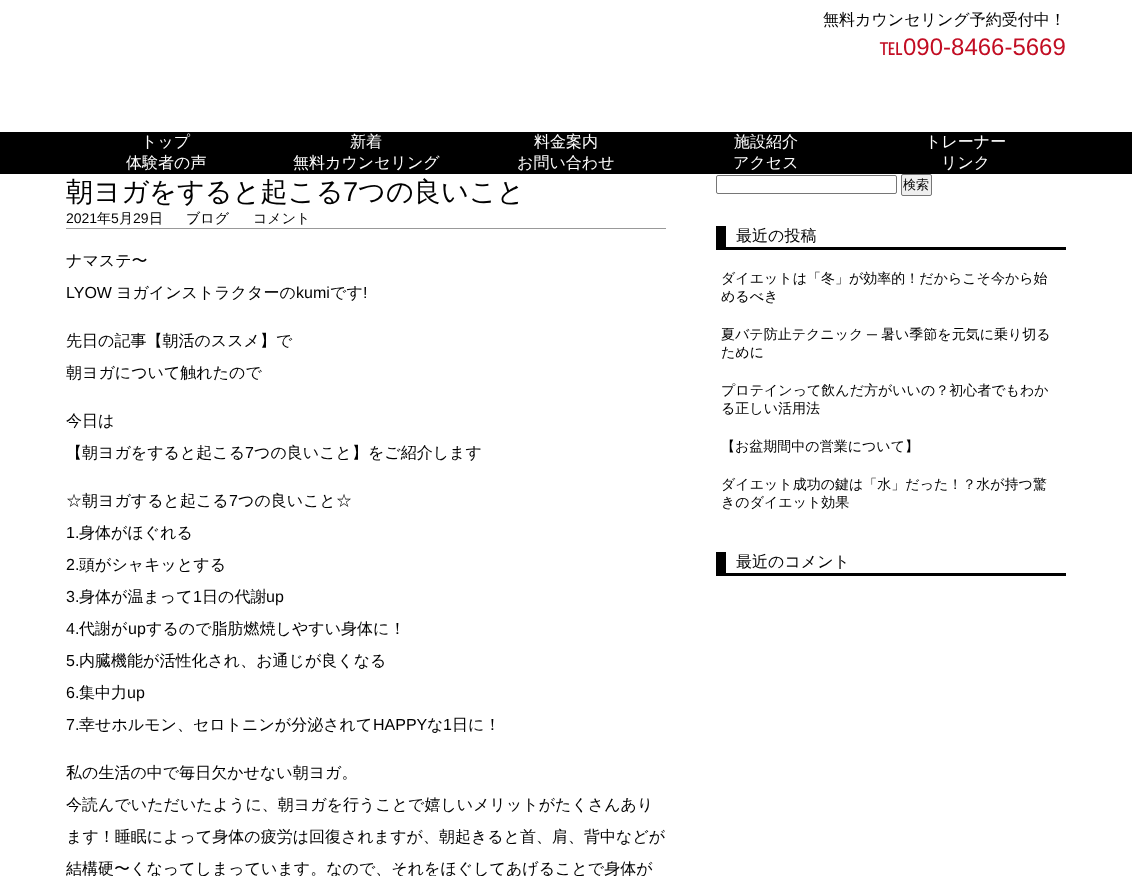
<!DOCTYPE html>
<meta charset="utf-8">
<style>body { margin: 0 } canvas { display: block }</style>
<canvas id="canvas" width="1132" height="876"></canvas>
<script>
window.onload = function () {
    const canvas = document.getElementById('canvas');
    const context = canvas.getContext('2d');
    context.miterLimit = 4;
    context.fontKerning = 'normal';

    context.fillStyle = 'rgb(255, 255, 255)';
    context.fillRect(0, 0, 1132, 876);
    context.fillStyle = 'rgb(0, 0, 0)';
    context.fillRect(0, 132, 1132, 42);
    context.fillStyle = 'rgb(153, 153, 153)';
    context.fillRect(66, 228, 600, 1);
    context.beginPath();
    context.roundRect(716.5, 175.5, 180, 18, 1.5);
    context.strokeStyle = 'rgb(118, 118, 118)';
    context.stroke();
    context.fillStyle = 'rgb(239, 239, 239)';
    context.beginPath();
    context.roundRect(901.5, 174.5, 30, 21, 1.5);
    context.fill();
    context.stroke();
    context.fillStyle = 'rgb(0, 0, 0)';
    context.fillRect(726, 247, 340, 3);
    context.fillRect(716, 226, 10, 24);
    context.fillRect(726, 573, 340, 3);
    context.fillRect(716, 552, 10, 24);
    context.font = '500 16px WenQuanYi Zen Hei';
    context.fillText('無料カウンセリング予約受付中！', 823, 25);
    context.font = '500 24px WenQuanYi Zen Hei';
    context.fillStyle = 'rgb(194, 13, 35)';
    context.fillText('℡', 879, 55);
    context.font = '24px Liberation Sans';
    context.fillText('090-8466-5669', 903, 55);
    context.font = '500 16px WenQuanYi Zen Hei';
    context.fillStyle = 'rgb(255, 255, 255)';
    context.fillText('トップ', 141, 147);
    context.fillText('新着', 350, 147);
    context.fillText('料金案内', 534, 147);
    context.fillText('施設紹介', 734, 147);
    context.fillText('トレーナー', 925, 147);
    context.fillText('体験者の声', 126, 168);
    context.fillText('無料カウンセリング', 293, 168);
    context.fillText('お問い合わせ', 517, 168);
    context.fillText('アクセス', 733, 168);
    context.fillText('リンク', 941, 168);
    context.font = '500 27.25px WenQuanYi Zen Hei';
    context.fillStyle = 'rgb(0, 0, 0)';
    context.fillText('朝ヨガをすると起こる', 66, 201);
    context.font = '27.25px Liberation Sans';
    context.fillText('7', 343, 201);
    context.font = '500 27.25px WenQuanYi Zen Hei';
    context.fillText('つの良いこと', 358, 201);
    context.font = '14px Liberation Sans';
    context.fillText('2021', 66, 223);
    context.font = '500 14px WenQuanYi Zen Hei';
    context.fillText('年', 97, 223);
    context.font = '14px Liberation Sans';
    context.fillText('5', 111, 223);
    context.font = '500 14px WenQuanYi Zen Hei';
    context.fillText('月', 119, 223);
    context.font = '14px Liberation Sans';
    context.fillText('29', 133, 223);
    context.font = '500 14px WenQuanYi Zen Hei';
    context.fillText('日', 149, 223);
    context.fillText('ブログ', 186, 223);
    context.fillText('コメント', 253, 223);
    context.font = '500 16px WenQuanYi Zen Hei';
    context.fillText('ナマステ〜', 66, 266);
    context.font = '16px Liberation Sans';
    context.fillText('LYOW', 66, 298);
    context.font = '500 16px WenQuanYi Zen Hei';
    context.fillText('ヨガインストラクターの', 116, 298);
    context.font = '16px Liberation Sans';
    context.fillText('kumi', 296, 298);
    context.font = '500 16px WenQuanYi Zen Hei';
    context.fillText('です', 330, 298);
    context.font = '16px Liberation Sans';
    context.fillText('!', 363, 298);
    context.font = '500 16px WenQuanYi Zen Hei';
    context.fillText('先日の記事【朝活のススメ】で', 66, 346);
    context.fillText('朝ヨガについて触れたので', 66, 378);
    context.fillText('今日は', 66, 426);
    context.fillText('【朝ヨガをすると起こる', 66, 458);
    context.font = '16px Liberation Sans';
    context.fillText('7', 245, 458);
    context.font = '500 16px WenQuanYi Zen Hei';
    context.fillText('つの良いこと】をご紹介します', 254, 458);
    context.fillText('☆朝ヨガすると起こる', 66, 506);
    context.font = '16px Liberation Sans';
    context.fillText('7', 229, 506);
    context.font = '500 16px WenQuanYi Zen Hei';
    context.fillText('つの良いこと☆', 238, 506);
    context.font = '16px Liberation Sans';
    context.fillText('1.', 66, 538);
    context.font = '500 16px WenQuanYi Zen Hei';
    context.fillText('身体がほぐれる', 79, 538);
    context.font = '16px Liberation Sans';
    context.fillText('2.', 66, 570);
    context.font = '500 16px WenQuanYi Zen Hei';
    context.fillText('頭がシャキッとする', 79, 570);
    context.font = '16px Liberation Sans';
    context.fillText('3.', 66, 602);
    context.font = '500 16px WenQuanYi Zen Hei';
    context.fillText('身体が温まって', 79, 602);
    context.font = '16px Liberation Sans';
    context.fillText('1', 193, 602);
    context.font = '500 16px WenQuanYi Zen Hei';
    context.fillText('日の代謝', 202, 602);
    context.font = '16px Liberation Sans';
    context.fillText('up', 266, 602);
    context.fillText('4.', 66, 634);
    context.font = '500 16px WenQuanYi Zen Hei';
    context.fillText('代謝が', 79, 634);
    context.font = '16px Liberation Sans';
    context.fillText('up', 128, 634);
    context.font = '500 16px WenQuanYi Zen Hei';
    context.fillText('するので脂肪燃焼しやすい身体に！', 146, 634);
    context.font = '16px Liberation Sans';
    context.fillText('5.', 66, 666);
    context.font = '500 16px WenQuanYi Zen Hei';
    context.fillText('内臓機能が活性化され、お通じが良くなる', 79, 666);
    context.font = '16px Liberation Sans';
    context.fillText('6.', 66, 698);
    context.font = '500 16px WenQuanYi Zen Hei';
    context.fillText('集中力', 79, 698);
    context.font = '16px Liberation Sans';
    context.fillText('up', 127, 698);
    context.fillText('7.', 66, 730);
    context.font = '500 16px WenQuanYi Zen Hei';
    context.fillText('幸せホルモン、セロトニンが分泌されて', 79, 730);
    context.font = '16px Liberation Sans';
    context.fillText('HAPPY', 373, 730);
    context.font = '500 16px WenQuanYi Zen Hei';
    context.fillText('な', 427, 730);
    context.font = '16px Liberation Sans';
    context.fillText('1', 443, 730);
    context.font = '500 16px WenQuanYi Zen Hei';
    context.fillText('日に！', 452, 730);
    context.fillText('私の生活の中で毎日欠かせない朝ヨガ。', 66, 778);
    context.fillText('今読んでいただいたように、朝ヨガを行うことで嬉しいメリットがたくさんあり', 66, 810);
    context.fillText('ます！睡眠によって身体の疲労は回復されますが、朝起きると首、肩、背中などが', 66, 842);
    context.fillText('結構硬〜くなってしまっています。なので、それをほぐしてあげることで身体が', 66, 874);
    context.font = '500 13px WenQuanYi Zen Hei';
    context.fillText('検索', 903, 189);
    context.font = '500 16px WenQuanYi Zen Hei';
    context.fillText('最近の投稿', 736, 241);
    context.font = '500 14px WenQuanYi Zen Hei';
    context.fillText('ダイエットは「冬」が効率的！だからこそ今から始', 721, 283);
    context.fillText('めるべき', 721, 301);
    context.fillText('夏バテ防止テクニック', 721, 339);
    context.font = '14px Liberation Sans';
    context.fillText('─', 867, 339);
    context.font = '500 14px WenQuanYi Zen Hei';
    context.fillText('暑い季節を元気に乗り切る', 881, 339);
    context.fillText('ために', 721, 357);
    context.fillText('プロテインって飲んだ方がいいの？初心者でもわか', 721, 395);
    context.fillText('る正しい活用法', 721, 413);
    context.fillText('【お盆期間中の営業について】', 721, 451);
    context.fillText('ダイエット成功の鍵は「水」だった！？水が持つ驚', 721, 489);
    context.fillText('きのダイエット効果', 721, 507);
    context.font = '500 16px WenQuanYi Zen Hei';
    context.fillText('最近のコメント', 736, 567);
};
</script>
